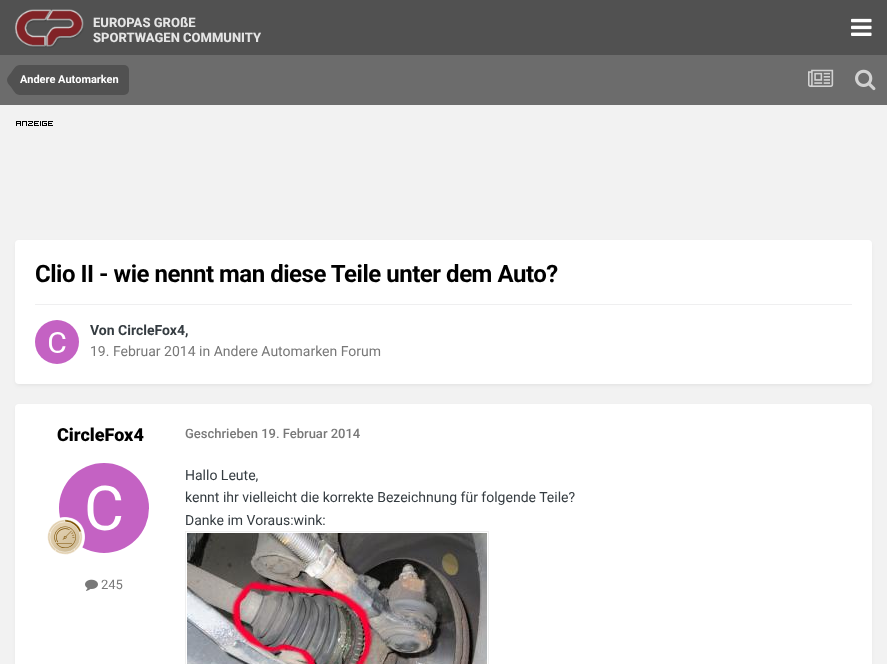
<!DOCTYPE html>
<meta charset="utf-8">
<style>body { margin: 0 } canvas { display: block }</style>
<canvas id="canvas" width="887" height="664"></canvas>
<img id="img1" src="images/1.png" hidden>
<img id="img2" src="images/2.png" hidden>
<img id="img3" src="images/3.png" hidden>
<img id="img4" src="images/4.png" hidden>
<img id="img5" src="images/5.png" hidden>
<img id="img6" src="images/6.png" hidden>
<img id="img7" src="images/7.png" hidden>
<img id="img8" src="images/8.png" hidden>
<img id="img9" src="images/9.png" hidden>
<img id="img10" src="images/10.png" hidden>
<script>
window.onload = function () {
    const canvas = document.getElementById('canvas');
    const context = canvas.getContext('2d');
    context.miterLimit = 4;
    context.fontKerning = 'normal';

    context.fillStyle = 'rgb(242, 242, 242)';
    context.fillRect(0, 0, 887, 664);
    context.fillStyle = 'rgb(81, 81, 81)';
    context.fillRect(0, 0, 887, 55);
    context.drawImage(document.getElementById('img1'), 15, 9, 69, 39);
    context.drawImage(document.getElementById('img2'), 851, 18, 21, 18);
    context.fillStyle = 'rgb(108, 108, 108)';
    context.fillRect(0, 55, 887, 50);
    context.fillStyle = 'rgb(81, 81, 81)';
    context.beginPath();
    context.roundRect(20, 65, 109, 30, [0, 5, 5, 0]);
    context.fill();
    context.beginPath();
    context.moveTo(20, 80);
    context.lineTo(20, 95);
    context.bezierCurveTo(15.5, 95, 13.5, 90.5, 11, 87);
    context.bezierCurveTo(9.5, 85, 7, 83, 7, 80);
    context.closePath();
    context.moveTo(20, 80);
    context.lineTo(7, 80);
    context.bezierCurveTo(7, 77, 9.5, 75, 11, 73);
    context.bezierCurveTo(13.5, 69.5, 15.5, 65, 20, 65);
    context.closePath();
    context.fill();
    context.drawImage(document.getElementById('img3'), 808, 69, 26, 18);
    context.drawImage(document.getElementById('img4'), 855, 69, 21, 22);
    context.drawImage(document.getElementById('img5'), 16, 121, 37, 5);
    context.fillStyle = 'rgba(68, 68, 68, 0.1)';
    context.filter = 'blur(2px)';
    context.beginPath();
    context.roundRect(16, 243, 855, 142, 3);
    context.fill();
    context.filter = 'none';
    context.fillStyle = 'rgb(255, 255, 255)';
    context.beginPath();
    context.roundRect(15, 240, 857, 144, 4);
    context.fill();
    context.fillStyle = 'rgb(239, 239, 240)';
    context.fillRect(35, 304, 817, 1);
    context.drawImage(document.getElementById('img6'), 35, 320, 44, 44);
    context.fillStyle = 'rgba(68, 68, 68, 0.1)';
    context.filter = 'blur(2px)';
    context.beginPath();
    context.roundRect(16, 407, 855, 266, 3);
    context.fill();
    context.filter = 'none';
    context.fillStyle = 'rgb(255, 255, 255)';
    context.beginPath();
    context.roundRect(15, 404, 857, 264, 4);
    context.fill();
    context.drawImage(document.getElementById('img7'), 59, 463, 90, 90);
    context.drawImage(document.getElementById('img8'), 47, 517, 38, 38);
    context.drawImage(document.getElementById('img9'), 85, 579, 13, 12);
    context.strokeStyle = 'rgb(239, 239, 239)';
    context.strokeRect(185.5, 531.5, 303, 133);
    context.drawImage(document.getElementById('img10'), 187, 533, 300, 131);
    context.font = '800 13px Roboto';
    context.fillStyle = 'rgb(229, 229, 229)';
    context.fillText('EUROPAS GROßE', 93, 27);
    context.fillText('SPORTWAGEN COMMUNITY', 93, 42);
    context.font = 'bold 11px Roboto';
    context.fillStyle = 'rgb(255, 255, 255)';
    context.fillText('Andere Automarken', 20, 83);
    context.letterSpacing = '-0.48px';
    context.font = 'bold 24px Roboto';
    context.fillStyle = 'rgb(0, 0, 0)';
    context.fillText('Clio II - wie nennt man diese Teile unter dem Auto?', 35, 282);
    context.letterSpacing = '0px';
    context.font = 'bold 14px Roboto';
    context.fillStyle = 'rgb(53, 60, 65)';
    context.fillText('Von CircleFox4,', 90, 335);
    context.font = '14px Roboto';
    context.fillStyle = 'rgb(120, 120, 120)';
    context.fillText('19. Februar 2014 in Andere Automarken Forum', 90, 356);
    context.font = '900 18px Roboto';
    context.fillStyle = 'rgb(0, 0, 0)';
    context.fillText('CircleFox4', 57, 441);
    context.font = '13px Roboto';
    context.fillStyle = 'rgb(120, 120, 120)';
    context.fillText('245', 101, 589);
    context.font = '500 13px Roboto';
    context.fillText('Geschrieben 19. Februar 2014', 185, 438);
    context.font = '14px Roboto';
    context.fillStyle = 'rgb(53, 60, 65)';
    context.fillText('Hallo Leute,', 185, 480);
    context.fillText('kennt ihr vielleicht die korrekte Bezeichnung für folgende Teile?', 185, 502);
    context.fillText('Danke im Voraus:wink:', 185, 525);
};
</script>
